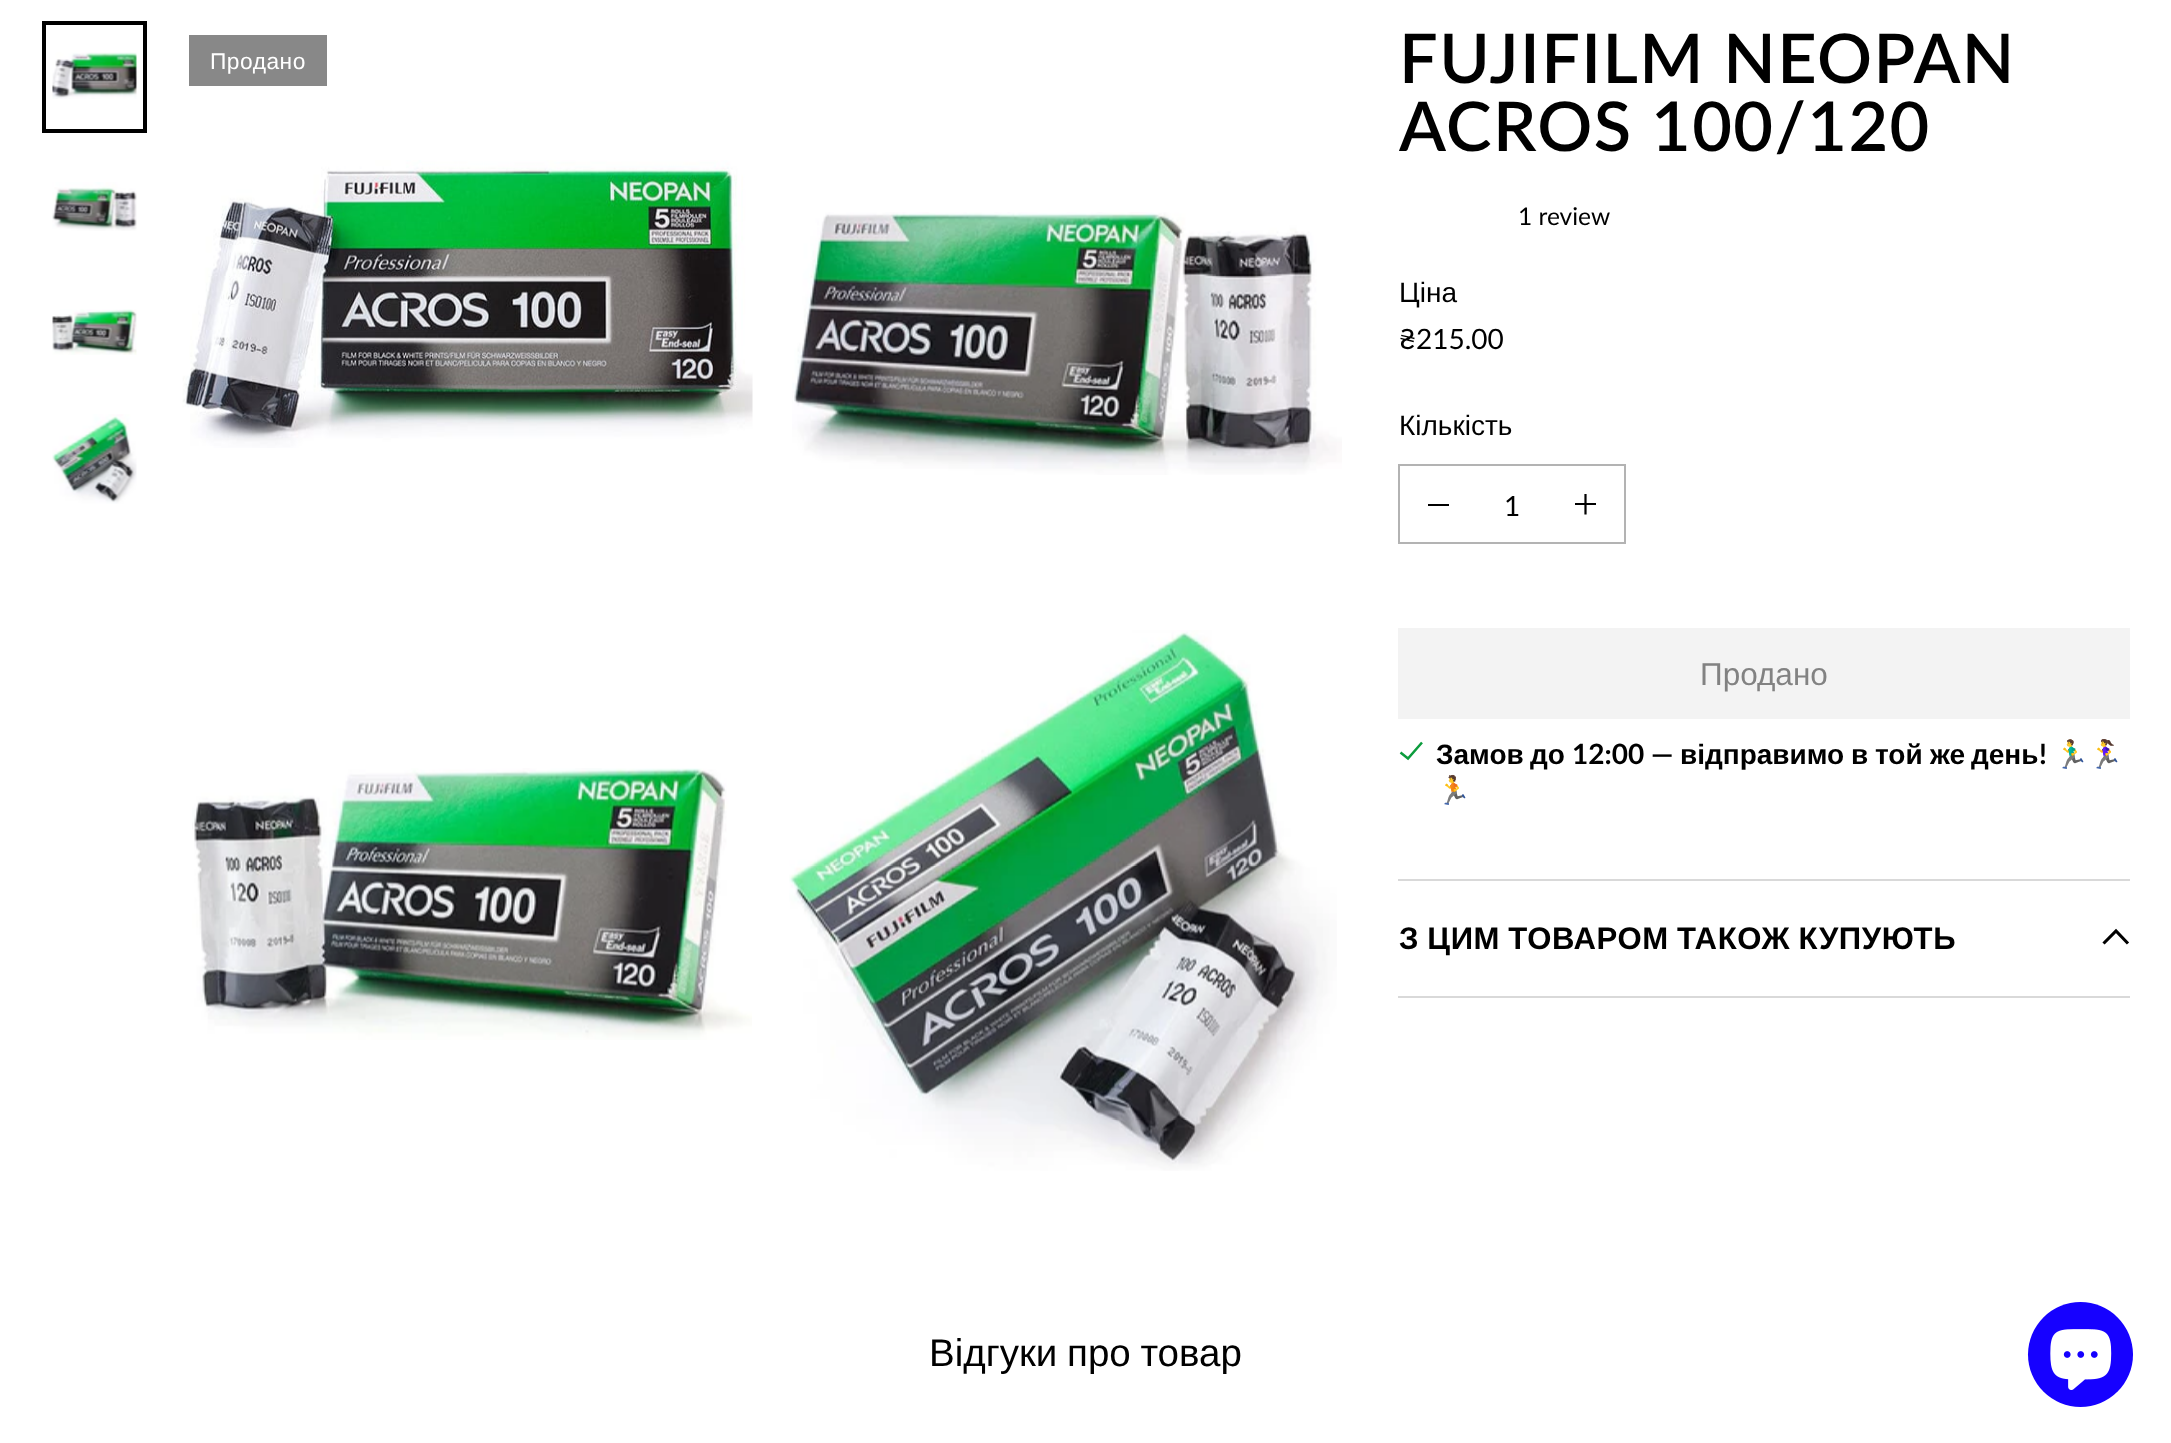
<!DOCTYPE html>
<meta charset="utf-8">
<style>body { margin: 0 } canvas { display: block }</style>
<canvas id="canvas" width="2171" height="1443"></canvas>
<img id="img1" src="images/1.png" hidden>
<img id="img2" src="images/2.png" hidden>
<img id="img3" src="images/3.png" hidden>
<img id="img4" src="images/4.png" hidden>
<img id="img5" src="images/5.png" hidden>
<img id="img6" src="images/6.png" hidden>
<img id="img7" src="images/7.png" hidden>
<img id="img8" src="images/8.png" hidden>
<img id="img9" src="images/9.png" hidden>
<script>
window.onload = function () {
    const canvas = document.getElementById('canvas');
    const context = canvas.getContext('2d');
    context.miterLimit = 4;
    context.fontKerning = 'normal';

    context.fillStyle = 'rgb(255, 255, 255)';
    context.fillRect(0, 0, 2171, 1443);
    context.strokeStyle = 'rgb(0, 0, 0)';
    context.lineWidth = 4;
    context.strokeRect(44, 23, 101, 108);
    context.drawImage(document.getElementById('img1'), 52, 52, 85, 47);
    context.drawImage(document.getElementById('img2'), 52, 182, 85, 49);
    context.drawImage(document.getElementById('img3'), 52, 309, 85, 46);
    context.drawImage(document.getElementById('img4'), 52, 414, 85, 90);
    context.fillStyle = 'rgb(136, 136, 136)';
    context.fillRect(189, 35, 138, 51);
    context.drawImage(document.getElementById('img5'), 182, 160, 571, 288);
    context.drawImage(document.getElementById('img6'), 792, 212, 550, 263);
    context.drawImage(document.getElementById('img7'), 192, 768, 560, 272);
    context.drawImage(document.getElementById('img8'), 789, 630, 548, 541);
    context.strokeStyle = 'rgb(179, 179, 179)';
    context.lineWidth = 2;
    context.strokeRect(1399, 465, 226, 78);
    context.fillStyle = 'rgb(0, 0, 0)';
    context.fillRect(1428, 504, 21, 2);
    context.save();
    context.beginPath();
    context.rect(1575, 494, 21, 21);
    context.clip();
    context.beginPath();
    context.moveTo(1585.5, 493.5);
    context.lineTo(1585.5, 504);
    context.moveTo(1585.5, 514.5);
    context.lineTo(1585.5, 504);
    context.moveTo(1585.5, 504);
    context.lineTo(1596, 504);
    context.moveTo(1585.5, 504);
    context.lineTo(1575, 504);
    context.strokeStyle = 'rgb(0, 0, 0)';
    context.lineWidth = 2.2;
    context.stroke();
    context.restore();
    context.fillStyle = 'rgb(243, 243, 243)';
    context.fillRect(1398, 628, 732, 91);
    context.beginPath();
    context.moveTo(1400.5, 752.5);
    context.lineTo(1408, 758.5);
    context.lineTo(1422, 742.5);
    context.strokeStyle = 'rgb(12, 156, 61)';
    context.lineWidth = 2.5;
    context.stroke();
    context.fillStyle = 'rgb(217, 217, 217)';
    context.fillRect(1398, 879, 732, 2);
    context.fillRect(1398, 996, 732, 2);
    context.beginPath();
    context.moveTo(2128, 943.5);
    context.lineTo(2116, 931);
    context.lineTo(2103.5, 943.5);
    context.strokeStyle = 'rgb(0, 0, 0)';
    context.lineWidth = 3.1;
    context.stroke();
    context.fillStyle = 'rgb(22, 1, 255)';
    context.beginPath();
    context.arc(2080.5, 1354.5, 52.5, 0, 2 * Math.PI);
    context.fill();
    context.drawImage(document.getElementById('img9'), 2050, 1329, 62, 61);
    context.letterSpacing = '0.5px';
    context.font = '22.75px Liberation Sans';
    context.fillStyle = 'rgb(255, 255, 255)';
    context.fillText('Продано', 210, 69);
    context.letterSpacing = '1.4px';
    context.font = '600 68.5px Lato';
    context.fillStyle = 'rgb(0, 0, 0)';
    context.fillText('FUJIFILM NEOPAN', 1399, 83);
    context.fillText('ACROS 100/120', 1399, 151);
    context.letterSpacing = '0px';
    context.font = '24.5px Lato';
    context.fillText('1 review', 1518, 225);
    context.font = '28px Liberation Sans';
    context.fillText('Ціна', 1399, 302);
    context.font = '28px Lato';
    context.fillText('₴215.00', 1399, 349);
    context.font = '28px Liberation Sans';
    context.fillText('Кількість', 1399, 435);
    context.font = '28px Lato';
    context.fillText('1', 1504, 516);
    context.font = '31.5px Liberation Sans';
    context.fillStyle = 'rgb(130, 130, 130)';
    context.fillText('Продано', 1700, 685);
    context.font = 'bold 28px Liberation Sans';
    context.fillStyle = 'rgb(0, 0, 0)';
    context.fillText('Замов', 1436, 764);
    context.fillText('до', 1530, 764);
    context.font = 'bold 28px Lato';
    context.fillText('12:00 —', 1572, 764);
    context.font = 'bold 28px Liberation Sans';
    context.fillText('відправимо', 1680, 764);
    context.fillText('в', 1851, 764);
    context.fillText('той', 1875, 764);
    context.fillText('же', 1930, 764);
    context.fillText('день', 1971, 764);
    context.font = 'bold 28px Lato';
    context.fillText('!', 2039, 764);
    context.font = 'bold 28px Noto Color Emoji';
    context.fillText('🏃‍♂️🏃‍♀️', 2054, 764);
    context.fillText('🏃', 1436, 800);
    context.letterSpacing = '0.6px';
    context.wordSpacing = '-1px';
    context.font = 'bold 31.1px Liberation Sans';
    context.fillText('З ЦИМ ТОВАРОМ ТАКОЖ КУПУЮТЬ', 1399, 949);
    context.letterSpacing = '0px';
    context.font = '38.5px Liberation Sans';
    context.fillText('Відгуки про товар', 929, 1366);
};
</script>
